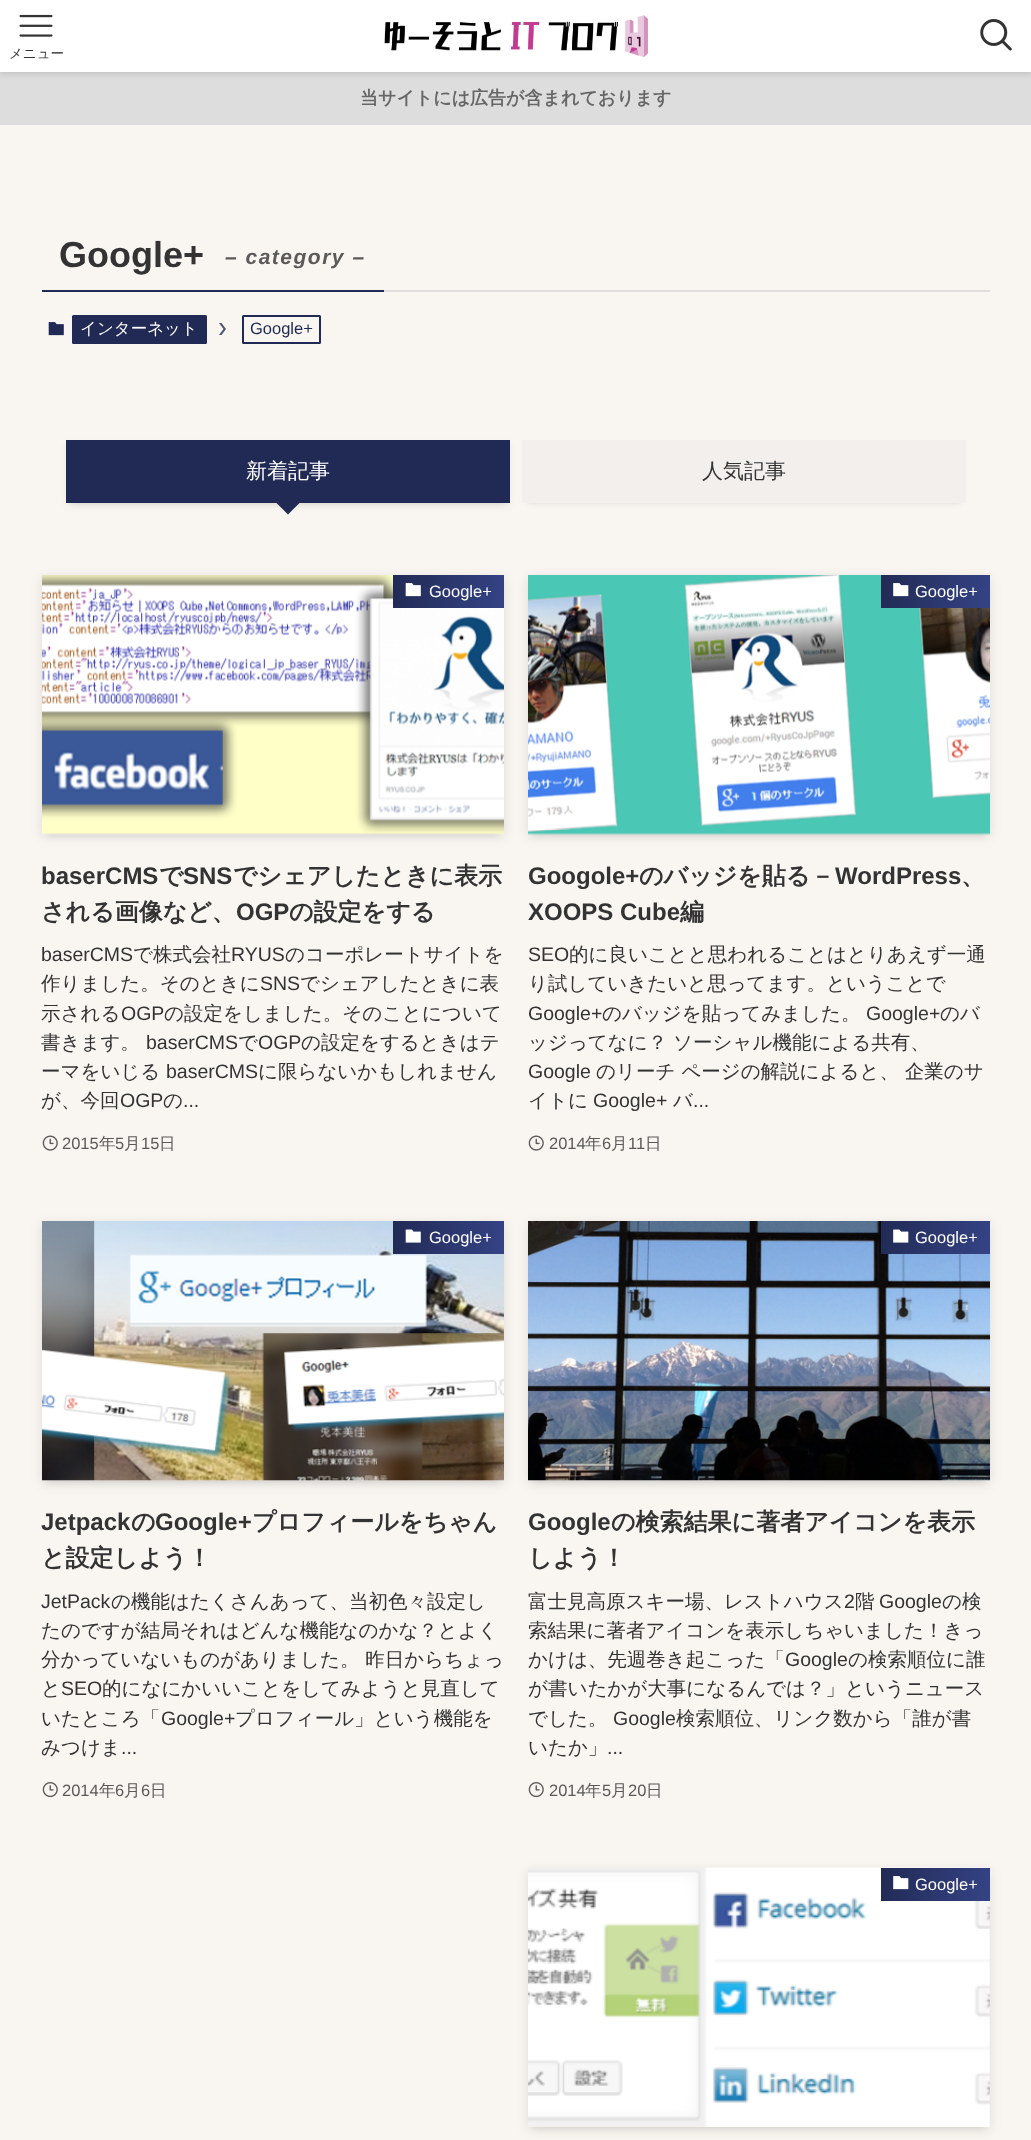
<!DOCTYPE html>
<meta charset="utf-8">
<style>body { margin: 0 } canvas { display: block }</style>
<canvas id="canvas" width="1031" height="2140"></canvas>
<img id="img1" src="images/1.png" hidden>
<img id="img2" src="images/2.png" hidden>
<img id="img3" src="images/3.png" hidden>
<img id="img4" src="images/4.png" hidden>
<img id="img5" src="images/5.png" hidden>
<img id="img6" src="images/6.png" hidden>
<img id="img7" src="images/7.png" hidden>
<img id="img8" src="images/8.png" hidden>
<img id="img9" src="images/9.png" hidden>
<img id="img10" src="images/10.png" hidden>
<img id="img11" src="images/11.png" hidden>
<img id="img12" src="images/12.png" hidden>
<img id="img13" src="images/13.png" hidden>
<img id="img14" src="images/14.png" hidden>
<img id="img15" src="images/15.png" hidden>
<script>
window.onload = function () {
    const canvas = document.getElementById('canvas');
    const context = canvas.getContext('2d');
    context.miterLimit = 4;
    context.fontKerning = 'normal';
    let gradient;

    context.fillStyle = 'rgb(249, 246, 242)';
    context.fillRect(0, 0, 1031, 2140);
    context.fillStyle = 'rgb(221, 221, 221)';
    context.fillRect(0, 72, 1031, 53);
    context.fillStyle = 'rgba(0, 0, 0, 0.12)';
    context.filter = 'blur(3px)';
    context.beginPath();
    context.rect(0, 2, 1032, 72);
    context.fill();
    context.filter = 'none';
    context.fillStyle = 'rgb(255, 255, 255)';
    context.fillRect(0, 0, 1031, 72);
    context.drawImage(document.getElementById('img1'), 384, 15, 264, 42);
    context.drawImage(document.getElementById('img2'), 980, 19, 32, 32);
    context.drawImage(document.getElementById('img3'), 19, 14, 34, 23);
    context.fillStyle = 'rgb(224, 223, 221)';
    context.fillRect(384, 290, 606, 2);
    context.fillStyle = 'rgb(33, 42, 84)';
    context.fillRect(42, 290, 342, 2);
    context.drawImage(document.getElementById('img4'), 48, 322, 16, 14);
    context.beginPath();
    context.roundRect(72, 315, 135, 29, 1.5);
    context.fill();
    context.fillStyle = 'rgb(76, 83, 116)';
    context.beginPath();
    context.moveTo(221.5, 323);
    context.lineTo(219, 323);
    context.lineTo(223.5, 329);
    context.lineTo(219, 335);
    context.lineTo(221.5, 335);
    context.lineTo(226, 329);
    context.closePath();
    context.fill();
    context.beginPath();
    context.roundRect(243, 316, 77, 27, 0.5);
    context.strokeStyle = 'rgb(33, 42, 84)';
    context.lineWidth = 2;
    context.stroke();
    context.fillStyle = 'rgba(0, 0, 0, 0.1)';
    context.filter = 'blur(3px)';
    context.beginPath();
    context.rect(72, 452, 432, 51);
    context.fill();
    context.filter = 'none';
    context.fillStyle = 'rgba(0, 0, 0, 0.05)';
    context.filter = 'blur(3px)';
    context.beginPath();
    context.rect(66, 443, 444, 63);
    context.fill();
    context.filter = 'none';
    context.fillStyle = 'rgb(33, 42, 84)';
    context.fillRect(66, 440, 444, 63);
    context.beginPath();
    context.moveTo(276, 502.5);
    context.lineTo(300, 502.5);
    context.lineTo(288, 514.5);
    context.closePath();
    context.fill();
    context.save();
    context.beginPath();
    context.moveTo(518, 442);
    context.lineTo(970, 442);
    context.lineTo(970, 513);
    context.lineTo(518, 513);
    context.closePath();
    context.moveTo(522, 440);
    context.lineTo(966, 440);
    context.lineTo(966, 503);
    context.lineTo(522, 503);
    context.closePath();
    context.clip('evenodd');
    context.fillStyle = 'rgba(0, 0, 0, 0.1)';
    context.filter = 'blur(3px)';
    context.beginPath();
    context.rect(528, 452, 432, 51);
    context.fill();
    context.filter = 'none';
    context.restore();
    context.fillStyle = 'rgba(199, 199, 199, 0.15)';
    context.fillRect(522, 440, 444, 63);
    context.fillStyle = 'rgba(0, 0, 0, 0.1)';
    context.filter = 'blur(3px)';
    context.beginPath();
    context.rect(48, 587, 450, 247);
    context.fill();
    context.filter = 'none';
    context.filter = 'blur(6px)';
    context.beginPath();
    context.rect(42, 578, 462, 259);
    context.fill();
    context.filter = 'none';
    context.drawImage(document.getElementById('img5'), 42, 575, 462, 260);
    gradient = context.createLinearGradient(392, 581, 505, 601);
    gradient.addColorStop(0, 'rgb(33, 42, 84)');
    gradient.addColorStop(1, 'rgb(53, 67, 134)');
    context.fillStyle = gradient;
    context.fillRect(393, 575, 111, 33);
    context.drawImage(document.getElementById('img6'), 405, 583, 16, 14);
    context.drawImage(document.getElementById('img7'), 42, 1135, 16, 16);
    context.fillStyle = 'rgba(0, 0, 0, 0.1)';
    context.filter = 'blur(3px)';
    context.beginPath();
    context.rect(534, 587, 450, 247);
    context.fill();
    context.filter = 'none';
    context.filter = 'blur(6px)';
    context.beginPath();
    context.rect(528, 578, 462, 259);
    context.fill();
    context.filter = 'none';
    context.drawImage(document.getElementById('img8'), 528, 575, 462, 260);
    gradient = context.createLinearGradient(879, 581, 991, 601);
    gradient.addColorStop(0, 'rgb(33, 42, 84)');
    gradient.addColorStop(1, 'rgb(53, 67, 134)');
    context.fillStyle = gradient;
    context.fillRect(881, 575, 109, 33);
    context.drawImage(document.getElementById('img9'), 893, 583, 16, 14);
    context.drawImage(document.getElementById('img7'), 528, 1135, 16, 16);
    context.fillStyle = 'rgba(0, 0, 0, 0.1)';
    context.filter = 'blur(3px)';
    context.beginPath();
    context.rect(48, 1233, 450, 248);
    context.fill();
    context.filter = 'none';
    context.filter = 'blur(6px)';
    context.beginPath();
    context.rect(42, 1224, 462, 260);
    context.fill();
    context.filter = 'none';
    context.drawImage(document.getElementById('img10'), 42, 1221, 462, 260);
    gradient = context.createLinearGradient(392, 1228, 505, 1247);
    gradient.addColorStop(0, 'rgb(33, 42, 84)');
    gradient.addColorStop(1, 'rgb(53, 67, 134)');
    context.fillStyle = gradient;
    context.fillRect(393, 1221, 111, 33);
    context.drawImage(document.getElementById('img11'), 405, 1229, 16, 14);
    context.drawImage(document.getElementById('img12'), 42, 1782, 16, 16);
    context.fillStyle = 'rgba(0, 0, 0, 0.1)';
    context.filter = 'blur(3px)';
    context.beginPath();
    context.rect(534, 1233, 450, 248);
    context.fill();
    context.filter = 'none';
    context.filter = 'blur(6px)';
    context.beginPath();
    context.rect(528, 1224, 462, 260);
    context.fill();
    context.filter = 'none';
    context.drawImage(document.getElementById('img13'), 528, 1221, 462, 260);
    gradient = context.createLinearGradient(879, 1228, 991, 1247);
    gradient.addColorStop(0, 'rgb(33, 42, 84)');
    gradient.addColorStop(1, 'rgb(53, 67, 134)');
    context.fillStyle = gradient;
    context.fillRect(881, 1221, 109, 33);
    context.drawImage(document.getElementById('img14'), 893, 1229, 16, 14);
    context.drawImage(document.getElementById('img12'), 528, 1782, 16, 16);
    context.fillStyle = 'rgba(0, 0, 0, 0.1)';
    context.filter = 'blur(3px)';
    context.beginPath();
    context.rect(534, 1880, 450, 247);
    context.fill();
    context.filter = 'none';
    context.filter = 'blur(6px)';
    context.beginPath();
    context.rect(528, 1871, 462, 259);
    context.fill();
    context.filter = 'none';
    context.drawImage(document.getElementById('img15'), 528, 1867, 462, 260);
    gradient = context.createLinearGradient(879, 1874, 991, 1894);
    gradient.addColorStop(0, 'rgb(33, 42, 84)');
    gradient.addColorStop(1, 'rgb(53, 67, 134)');
    context.fillStyle = gradient;
    context.fillRect(881, 1868, 109, 33);
    context.drawImage(document.getElementById('img9'), 893, 1876, 16, 14);
    context.font = '500 13.5px WenQuanYi Zen Hei';
    context.fillStyle = 'rgb(51, 51, 51)';
    context.fillText('メニュー', 9, 58);
    context.font = 'bold 18px WenQuanYi Zen Hei';
    context.fillStyle = 'rgb(102, 102, 102)';
    context.fillText('当サイトには広告が含まれております', 360, 104);
    context.font = 'bold 36px Liberation Sans';
    context.fillStyle = 'rgb(51, 51, 51)';
    context.fillText('Google+', 59, 267);
    context.letterSpacing = '1.5px';
    context.font = 'italic bold 21px Liberation Sans';
    context.fillStyle = 'rgb(91, 90, 89)';
    context.fillText('– category –', 225, 264);
    context.letterSpacing = '0px';
    context.font = '500 16.5px WenQuanYi Zen Hei';
    context.fillStyle = 'rgb(255, 255, 255)';
    context.fillText('インターネット', 80, 334);
    context.font = '16.5px Liberation Sans';
    context.fillStyle = 'rgb(33, 42, 84)';
    context.fillText('Google+', 250, 334);
    context.font = '500 21px WenQuanYi Zen Hei';
    context.fillStyle = 'rgb(255, 255, 255)';
    context.fillText('新着記事', 246, 478);
    context.fillStyle = 'rgb(51, 51, 51)';
    context.fillText('人気記事', 702, 478);
    context.font = '16.5px Liberation Sans';
    context.fillStyle = 'rgb(255, 255, 255)';
    context.fillText('Google+', 429, 597);
    context.font = 'bold 24px Liberation Sans';
    context.fillStyle = 'rgb(51, 51, 51)';
    context.fillText('baserCMS', 41, 884);
    context.font = 'bold 24px WenQuanYi Zen Hei';
    context.fillText('で', 159, 884);
    context.font = 'bold 24px Liberation Sans';
    context.fillText('SNS', 183, 884);
    context.font = 'bold 24px WenQuanYi Zen Hei';
    context.fillText('でシェアしたときに表示', 233, 884);
    context.fillText('される画像など、', 41, 920);
    context.font = 'bold 24px Liberation Sans';
    context.fillText('OGP', 236, 920);
    context.font = 'bold 24px WenQuanYi Zen Hei';
    context.fillText('の設定をする', 289, 920);
    context.font = '19.5px Liberation Sans';
    context.fillText('baserCMS', 41, 961);
    context.font = '500 19.5px WenQuanYi Zen Hei';
    context.fillText('で株式会社', 133, 961);
    context.font = '19.5px Liberation Sans';
    context.fillText('RYUS', 231, 961);
    context.font = '500 19.5px WenQuanYi Zen Hei';
    context.fillText('のコーポレートサイトを', 285, 961);
    context.fillText('作りました。そのときに', 41, 990);
    context.font = '19.5px Liberation Sans';
    context.fillText('SNS', 260, 990);
    context.font = '500 19.5px WenQuanYi Zen Hei';
    context.fillText('でシェアしたときに表', 300, 990);
    context.fillText('示される', 41, 1020);
    context.font = '19.5px Liberation Sans';
    context.fillText('OGP', 121, 1020);
    context.font = '500 19.5px WenQuanYi Zen Hei';
    context.fillText('の設定をしました。そのことについて', 164, 1020);
    context.fillText('書きます。', 41, 1049);
    context.font = '19.5px Liberation Sans';
    context.fillText('baserCMS', 146, 1049);
    context.font = '500 19.5px WenQuanYi Zen Hei';
    context.fillText('で', 238, 1049);
    context.font = '19.5px Liberation Sans';
    context.fillText('OGP', 258, 1049);
    context.font = '500 19.5px WenQuanYi Zen Hei';
    context.fillText('の設定をするときはテ', 301, 1049);
    context.fillText('ーマをいじる', 41, 1078);
    context.font = '19.5px Liberation Sans';
    context.fillText('baserCMS', 166, 1078);
    context.font = '500 19.5px WenQuanYi Zen Hei';
    context.fillText('に限らないかもしれません', 258, 1078);
    context.fillText('が、今回', 41, 1107);
    context.font = '19.5px Liberation Sans';
    context.fillText('OGP', 120, 1107);
    context.font = '500 19.5px WenQuanYi Zen Hei';
    context.fillText('の', 163, 1107);
    context.font = '19.5px Liberation Sans';
    context.fillText('...', 183, 1107);
    context.font = '16.5px Liberation Sans';
    context.fillStyle = 'rgb(91, 90, 89)';
    context.fillText('2015', 62, 1149);
    context.font = '500 16.5px WenQuanYi Zen Hei';
    context.fillText('年', 99, 1149);
    context.font = '16.5px Liberation Sans';
    context.fillText('5', 115, 1149);
    context.font = '500 16.5px WenQuanYi Zen Hei';
    context.fillText('月', 124, 1149);
    context.font = '16.5px Liberation Sans';
    context.fillText('15', 141, 1149);
    context.font = '500 16.5px WenQuanYi Zen Hei';
    context.fillText('日', 159, 1149);
    context.font = '16.5px Liberation Sans';
    context.fillStyle = 'rgb(255, 255, 255)';
    context.fillText('Google+', 915, 597);
    context.font = 'bold 24px Liberation Sans';
    context.fillStyle = 'rgb(51, 51, 51)';
    context.fillText('Googole+', 528, 884);
    context.font = 'bold 24px WenQuanYi Zen Hei';
    context.fillText('のバッジを貼る－', 639, 884);
    context.font = 'bold 24px Liberation Sans';
    context.fillText('WordPress', 835, 884);
    context.font = 'bold 24px WenQuanYi Zen Hei';
    context.fillText('、', 961, 884);
    context.font = 'bold 24px Liberation Sans';
    context.fillText('XOOPS Cube', 528, 920);
    context.font = 'bold 24px WenQuanYi Zen Hei';
    context.fillText('編', 680, 920);
    context.font = '19.5px Liberation Sans';
    context.fillText('SEO', 528, 961);
    context.font = '500 19.5px WenQuanYi Zen Hei';
    context.fillText('的に良いことと思われることはとりあえず一通', 569, 961);
    context.fillText('り試していきたいと思ってます。ということで', 528, 990);
    context.font = '19.5px Liberation Sans';
    context.fillText('Google+', 528, 1020);
    context.font = '500 19.5px WenQuanYi Zen Hei';
    context.fillText('のバッジを貼ってみました。', 602, 1020);
    context.font = '19.5px Liberation Sans';
    context.fillText('Google+', 866, 1020);
    context.font = '500 19.5px WenQuanYi Zen Hei';
    context.fillText('のバ', 940, 1020);
    context.fillText('ッジってなに？ ソーシャル機能による共有、', 528, 1049);
    context.font = '19.5px Liberation Sans';
    context.fillText('Google', 528, 1078);
    context.font = '500 19.5px WenQuanYi Zen Hei';
    context.fillText('のリーチ ページの解説によると、 企業のサ', 596, 1078);
    context.fillText('イトに', 528, 1107);
    context.font = '19.5px Liberation Sans';
    context.fillText('Google+', 593, 1107);
    context.font = '500 19.5px WenQuanYi Zen Hei';
    context.fillText('バ', 673, 1107);
    context.font = '19.5px Liberation Sans';
    context.fillText('...', 693, 1107);
    context.font = '16.5px Liberation Sans';
    context.fillStyle = 'rgb(91, 90, 89)';
    context.fillText('2014', 549, 1149);
    context.font = '500 16.5px WenQuanYi Zen Hei';
    context.fillText('年', 585, 1149);
    context.font = '16.5px Liberation Sans';
    context.fillText('6', 602, 1149);
    context.font = '500 16.5px WenQuanYi Zen Hei';
    context.fillText('月', 611, 1149);
    context.font = '16.5px Liberation Sans';
    context.fillText('11', 628, 1149);
    context.font = '500 16.5px WenQuanYi Zen Hei';
    context.fillText('日', 645, 1149);
    context.font = '16.5px Liberation Sans';
    context.fillStyle = 'rgb(255, 255, 255)';
    context.fillText('Google+', 429, 1243);
    context.font = 'bold 24px Liberation Sans';
    context.fillStyle = 'rgb(51, 51, 51)';
    context.fillText('Jetpack', 41, 1530);
    context.font = 'bold 24px WenQuanYi Zen Hei';
    context.fillText('の', 131, 1530);
    context.font = 'bold 24px Liberation Sans';
    context.fillText('Google+', 155, 1530);
    context.font = 'bold 24px WenQuanYi Zen Hei';
    context.fillText('プロフィールをちゃん', 252, 1530);
    context.fillText('と設定しよう！', 41, 1566);
    context.font = '19.5px Liberation Sans';
    context.fillText('JetPack', 41, 1608);
    context.font = '500 19.5px WenQuanYi Zen Hei';
    context.fillText('の機能はたくさんあって、当初色々設定し', 111, 1608);
    context.fillText('たのですが結局それはどんな機能なのかな？とよく', 41, 1637);
    context.fillText('分かっていないものがありました。 昨日からちょっ', 41, 1666);
    context.fillText('と', 41, 1695);
    context.font = '19.5px Liberation Sans';
    context.fillText('SEO', 61, 1695);
    context.font = '500 19.5px WenQuanYi Zen Hei';
    context.fillText('的になにかいいことをしてみようと見直して', 102, 1695);
    context.fillText('いたところ「', 41, 1725);
    context.font = '19.5px Liberation Sans';
    context.fillText('Google+', 161, 1725);
    context.font = '500 19.5px WenQuanYi Zen Hei';
    context.fillText('プロフィール」という機能を', 235, 1725);
    context.fillText('みつけま', 41, 1754);
    context.font = '19.5px Liberation Sans';
    context.fillText('...', 121, 1754);
    context.font = '16.5px Liberation Sans';
    context.fillStyle = 'rgb(91, 90, 89)';
    context.fillText('2014', 62, 1796);
    context.font = '500 16.5px WenQuanYi Zen Hei';
    context.fillText('年', 99, 1796);
    context.font = '16.5px Liberation Sans';
    context.fillText('6', 115, 1796);
    context.font = '500 16.5px WenQuanYi Zen Hei';
    context.fillText('月', 124, 1796);
    context.font = '16.5px Liberation Sans';
    context.fillText('6', 141, 1796);
    context.font = '500 16.5px WenQuanYi Zen Hei';
    context.fillText('日', 150, 1796);
    context.font = '16.5px Liberation Sans';
    context.fillStyle = 'rgb(255, 255, 255)';
    context.fillText('Google+', 915, 1243);
    context.font = 'bold 24px Liberation Sans';
    context.fillStyle = 'rgb(51, 51, 51)';
    context.fillText('Google', 528, 1530);
    context.font = 'bold 24px WenQuanYi Zen Hei';
    context.fillText('の検索結果に著者アイコンを表示', 611, 1530);
    context.fillText('しよう！', 528, 1566);
    context.font = '500 19.5px WenQuanYi Zen Hei';
    context.fillText('富士見高原スキー場、レストハウス', 528, 1608);
    context.font = '19.5px Liberation Sans';
    context.fillText('2', 844, 1608);
    context.font = '500 19.5px WenQuanYi Zen Hei';
    context.fillText('階', 855, 1608);
    context.font = '19.5px Liberation Sans';
    context.fillText('Google', 879, 1608);
    context.font = '500 19.5px WenQuanYi Zen Hei';
    context.fillText('の検', 942, 1608);
    context.fillText('索結果に著者アイコンを表示しちゃいました！きっ', 528, 1637);
    context.fillText('かけは、先週巻き起こった「', 528, 1666);
    context.font = '19.5px Liberation Sans';
    context.fillText('Google', 785, 1666);
    context.font = '500 19.5px WenQuanYi Zen Hei';
    context.fillText('の検索順位に誰', 848, 1666);
    context.fillText('が書いたかが大事になるんでは？」というニュース', 528, 1695);
    context.fillText('でした。', 528, 1725);
    context.font = '19.5px Liberation Sans';
    context.fillText('Google', 613, 1725);
    context.font = '500 19.5px WenQuanYi Zen Hei';
    context.fillText('検索順位、リンク数から「誰が書', 676, 1725);
    context.fillText('いたか」', 528, 1754);
    context.font = '19.5px Liberation Sans';
    context.fillText('...', 607, 1754);
    context.font = '16.5px Liberation Sans';
    context.fillStyle = 'rgb(91, 90, 89)';
    context.fillText('2014', 549, 1796);
    context.font = '500 16.5px WenQuanYi Zen Hei';
    context.fillText('年', 585, 1796);
    context.font = '16.5px Liberation Sans';
    context.fillText('5', 602, 1796);
    context.font = '500 16.5px WenQuanYi Zen Hei';
    context.fillText('月', 611, 1796);
    context.font = '16.5px Liberation Sans';
    context.fillText('20', 628, 1796);
    context.font = '500 16.5px WenQuanYi Zen Hei';
    context.fillText('日', 646, 1796);
    context.font = '16.5px Liberation Sans';
    context.fillStyle = 'rgb(255, 255, 255)';
    context.fillText('Google+', 915, 1890);
};
</script>
